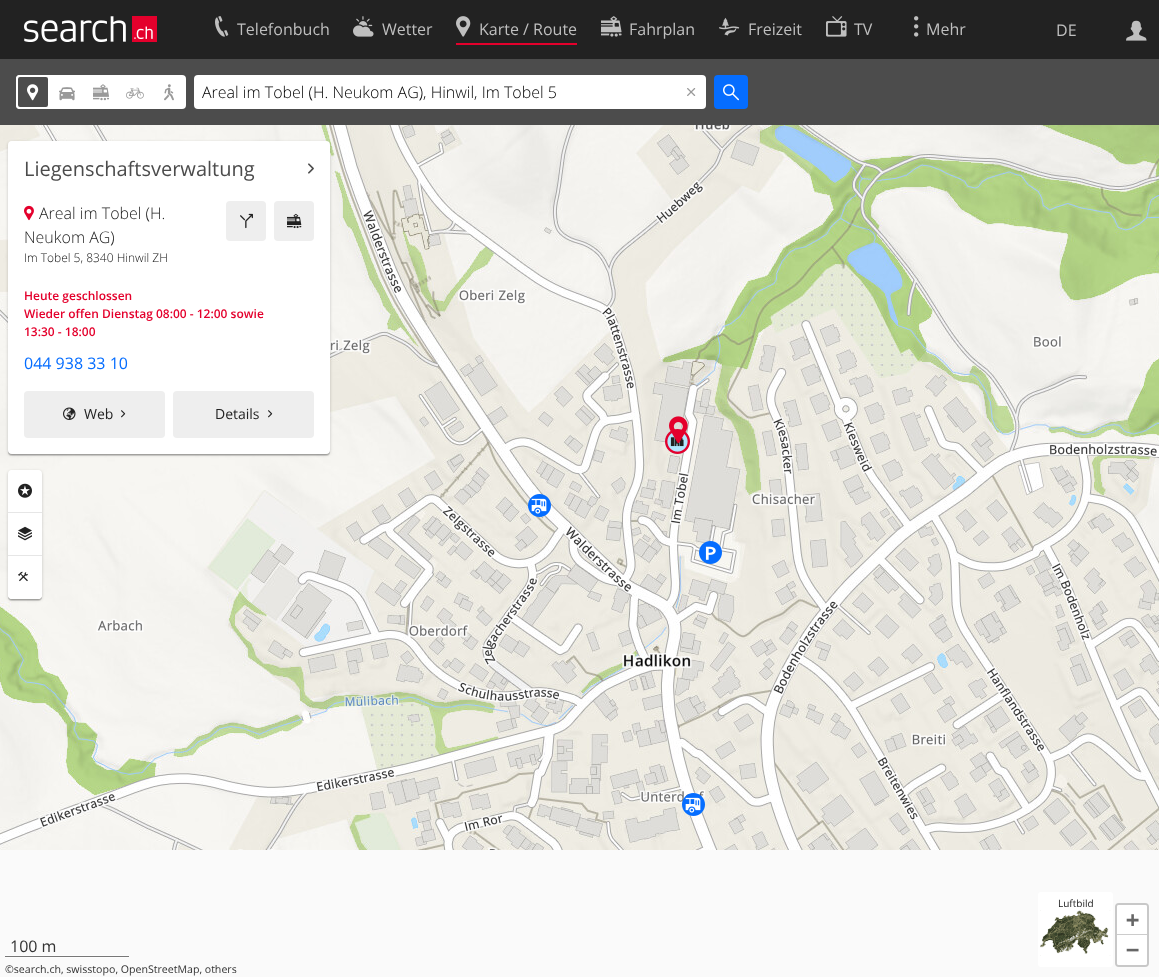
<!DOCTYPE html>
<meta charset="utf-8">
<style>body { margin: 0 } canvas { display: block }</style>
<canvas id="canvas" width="1159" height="977"></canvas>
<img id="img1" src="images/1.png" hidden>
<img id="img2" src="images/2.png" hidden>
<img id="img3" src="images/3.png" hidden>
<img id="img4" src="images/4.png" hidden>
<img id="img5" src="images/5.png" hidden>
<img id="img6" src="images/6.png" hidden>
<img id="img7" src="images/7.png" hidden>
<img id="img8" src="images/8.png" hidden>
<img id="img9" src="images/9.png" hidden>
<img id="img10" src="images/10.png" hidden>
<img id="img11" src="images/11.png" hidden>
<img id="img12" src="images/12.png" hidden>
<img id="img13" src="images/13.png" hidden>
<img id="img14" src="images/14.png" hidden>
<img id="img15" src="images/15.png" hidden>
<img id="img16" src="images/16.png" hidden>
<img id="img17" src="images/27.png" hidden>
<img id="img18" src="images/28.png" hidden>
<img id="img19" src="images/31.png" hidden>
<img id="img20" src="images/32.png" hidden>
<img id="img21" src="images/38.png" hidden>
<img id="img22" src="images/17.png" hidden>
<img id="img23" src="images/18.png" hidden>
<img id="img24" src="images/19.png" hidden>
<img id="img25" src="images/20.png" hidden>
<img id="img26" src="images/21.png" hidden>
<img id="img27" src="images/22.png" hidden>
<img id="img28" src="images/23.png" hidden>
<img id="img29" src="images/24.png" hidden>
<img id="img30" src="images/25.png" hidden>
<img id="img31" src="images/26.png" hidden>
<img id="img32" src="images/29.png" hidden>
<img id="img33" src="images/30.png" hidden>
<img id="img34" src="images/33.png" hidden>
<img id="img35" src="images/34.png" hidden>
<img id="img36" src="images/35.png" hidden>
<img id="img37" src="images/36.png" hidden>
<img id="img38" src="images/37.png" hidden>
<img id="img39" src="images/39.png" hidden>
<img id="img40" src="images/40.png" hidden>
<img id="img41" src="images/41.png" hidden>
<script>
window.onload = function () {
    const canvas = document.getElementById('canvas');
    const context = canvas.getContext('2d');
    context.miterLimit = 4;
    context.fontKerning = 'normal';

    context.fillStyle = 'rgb(250, 250, 250)';
    context.fillRect(0, 0, 1159, 977);
    context.fillStyle = 'rgb(34, 34, 34)';
    context.fillRect(0, 0, 1159, 59);
    context.drawImage(document.getElementById('img1'), 24, 16, 133, 26);
    context.drawImage(document.getElementById('img2'), 215, 16, 14, 21);
    context.drawImage(document.getElementById('img3'), 353, 16, 21, 21);
    context.fillStyle = 'rgb(228, 0, 44)';
    context.fillRect(456, 43, 121, 2);
    context.drawImage(document.getElementById('img4'), 456, 16, 15, 21);
    context.drawImage(document.getElementById('img5'), 601, 16, 21, 21);
    context.drawImage(document.getElementById('img6'), 719, 17, 21, 19);
    context.drawImage(document.getElementById('img7'), 826, 16, 21, 21);
    context.drawImage(document.getElementById('img8'), 914, 16, 5, 21);
    context.drawImage(document.getElementById('img9'), 1126, 20, 21, 21);
    context.fillStyle = 'rgb(76, 76, 76)';
    context.fillRect(0, 59, 1159, 66);
    context.fillStyle = 'rgb(255, 255, 255)';
    context.beginPath();
    context.roundRect(16, 75, 170, 34, 4);
    context.fill();
    context.fillStyle = 'rgb(76, 76, 76)';
    context.beginPath();
    context.roundRect(17, 76, 32, 32, 3);
    context.fill();
    context.strokeStyle = 'rgb(255, 255, 255)';
    context.lineWidth = 2;
    context.stroke();
    context.drawImage(document.getElementById('img10'), 27, 84, 12, 17);
    context.drawImage(document.getElementById('img11'), 59, 87, 16, 14);
    context.drawImage(document.getElementById('img12'), 93, 84, 17, 17);
    context.drawImage(document.getElementById('img13'), 126, 87, 18, 12);
    context.drawImage(document.getElementById('img14'), 164, 84, 10, 17);
    context.fillStyle = 'rgb(255, 255, 255)';
    context.beginPath();
    context.roundRect(194, 75, 512, 34, 4);
    context.fill();
    context.drawImage(document.getElementById('img15'), 687, 88, 9, 8);
    context.fillStyle = 'rgb(5, 109, 255)';
    context.beginPath();
    context.roundRect(714, 75, 34, 34, 4);
    context.fill();
    context.drawImage(document.getElementById('img16'), 723, 84, 16, 17);
    context.drawImage(document.getElementById('img17'), 0, 125, 27, 213);
    context.drawImage(document.getElementById('img18'), 27, 125, 512, 213);
    context.drawImage(document.getElementById('img19'), 0, 338, 27, 512);
    context.drawImage(document.getElementById('img20'), 27, 338, 512, 512);
    context.drawImage(document.getElementById('img21'), 38, 338, 501, 512);
    context.save();
    context.beginPath();
    context.moveTo(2, 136);
    context.lineTo(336, 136);
    context.lineTo(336, 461);
    context.lineTo(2, 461);
    context.closePath();
    context.moveTo(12, 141);
    context.lineTo(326, 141);
    context.bezierCurveTo(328, 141, 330, 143, 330, 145);
    context.lineTo(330, 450);
    context.bezierCurveTo(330, 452, 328, 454, 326, 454);
    context.lineTo(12, 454);
    context.bezierCurveTo(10, 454, 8, 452, 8, 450);
    context.lineTo(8, 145);
    context.bezierCurveTo(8, 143, 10, 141, 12, 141);
    context.closePath();
    context.clip('evenodd');
    context.fillStyle = 'rgba(0, 0, 0, 0.2)';
    context.filter = 'blur(1.5px)';
    context.beginPath();
    context.roundRect(8, 142, 322, 313, 4);
    context.fill();
    context.filter = 'none';
    context.restore();
    context.fillStyle = 'rgba(0, 0, 0, 0.12)';
    context.filter = 'blur(0.5px)';
    context.beginPath();
    context.roundRect(8, 143, 322, 313, 4);
    context.fill();
    context.filter = 'none';
    context.fillStyle = 'rgba(0, 0, 0, 0.14)';
    context.filter = 'blur(0.5px)';
    context.beginPath();
    context.roundRect(8, 142, 322, 313, 4);
    context.fill();
    context.filter = 'none';
    context.fillStyle = 'rgb(255, 255, 255)';
    context.beginPath();
    context.roundRect(8, 141, 322, 313, 4);
    context.fill();
    context.drawImage(document.getElementById('img22'), 308, 163, 6, 11);
    context.drawImage(document.getElementById('img23'), 24, 205, 10, 16);
    context.fillStyle = 'rgb(238, 238, 238)';
    context.beginPath();
    context.roundRect(226, 201, 40, 40, 4);
    context.fill();
    context.drawImage(document.getElementById('img24'), 240, 213, 13, 16);
    context.beginPath();
    context.roundRect(274, 201, 40, 40, 4);
    context.fill();
    context.drawImage(document.getElementById('img25'), 287, 213, 15, 16);
    context.beginPath();
    context.roundRect(24, 391, 141, 47, 4);
    context.fill();
    context.drawImage(document.getElementById('img26'), 63, 407, 13, 13);
    context.drawImage(document.getElementById('img27'), 121, 410, 5, 8);
    context.beginPath();
    context.roundRect(173, 391, 141, 47, 4);
    context.fill();
    context.drawImage(document.getElementById('img27'), 268, 410, 5, 8);
    context.save();
    context.beginPath();
    context.moveTo(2, 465);
    context.lineTo(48, 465);
    context.lineTo(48, 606);
    context.lineTo(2, 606);
    context.closePath();
    context.moveTo(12, 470);
    context.lineTo(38, 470);
    context.bezierCurveTo(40, 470, 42, 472, 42, 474);
    context.lineTo(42, 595);
    context.bezierCurveTo(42, 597, 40, 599, 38, 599);
    context.lineTo(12, 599);
    context.bezierCurveTo(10, 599, 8, 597, 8, 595);
    context.lineTo(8, 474);
    context.bezierCurveTo(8, 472, 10, 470, 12, 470);
    context.closePath();
    context.clip('evenodd');
    context.fillStyle = 'rgba(0, 0, 0, 0.2)';
    context.filter = 'blur(1.5px)';
    context.beginPath();
    context.roundRect(8, 471, 34, 129, 4);
    context.fill();
    context.filter = 'none';
    context.restore();
    context.fillStyle = 'rgba(0, 0, 0, 0.12)';
    context.filter = 'blur(0.5px)';
    context.beginPath();
    context.roundRect(8, 472, 34, 129, 4);
    context.fill();
    context.filter = 'none';
    context.fillStyle = 'rgba(0, 0, 0, 0.14)';
    context.filter = 'blur(0.5px)';
    context.beginPath();
    context.roundRect(8, 471, 34, 129, 4);
    context.fill();
    context.filter = 'none';
    context.fillStyle = 'rgb(255, 255, 255)';
    context.beginPath();
    context.roundRect(8, 470, 34, 129, 4);
    context.fill();
    context.fillStyle = 'rgb(230, 230, 230)';
    context.fillRect(8, 512, 34, 1);
    context.drawImage(document.getElementById('img28'), 18, 483, 14, 15);
    context.fillRect(8, 555, 34, 1);
    context.drawImage(document.getElementById('img29'), 18, 526, 14, 15);
    context.save();
    context.beginPath();
    context.roundRect(8, 470, 34, 129, 3);
    context.clip();
    context.fillStyle = 'rgb(255, 255, 255)';
    context.beginPath();
    context.roundRect(8, 556, 34, 43, [0, 0, 4, 4]);
    context.fill();
    context.restore();
    context.drawImage(document.getElementById('img30'), 18, 571, 10, 11);
    context.fillStyle = 'rgb(255, 255, 255)';
    context.beginPath();
    context.roundRect(1038, 892, 75, 75, 3);
    context.fill();
    context.drawImage(document.getElementById('img31'), 1040, 910, 71, 46);
    context.drawImage(document.getElementById('img32'), 539, 125, 512, 213);
    context.drawImage(document.getElementById('img33'), 1051, 125, 108, 213);
    context.drawImage(document.getElementById('img34'), 539, 338, 512, 512);
    context.drawImage(document.getElementById('img35'), 1051, 338, 108, 512);
    context.drawImage(document.getElementById('img36'), 360, 208, 167, 97);
    context.drawImage(document.getElementById('img37'), 600, 125, 451, 213);
    context.drawImage(document.getElementById('img38'), 1051, 335, 12, 3);
    context.drawImage(document.getElementById('img39'), 539, 338, 512, 484);
    context.drawImage(document.getElementById('img40'), 1051, 338, 107, 304);
    context.drawImage(document.getElementById('img41'), 669, 416, 19, 28);
    context.beginPath();
    context.roundRect(1116, 904, 32, 62, 3);
    context.strokeStyle = 'rgb(200, 200, 200)';
    context.stroke();
    context.beginPath();
    context.roundRect(1117, 905, 30, 30, [2, 2, 0, 0]);
    context.fill();
    context.fillStyle = 'rgb(204, 204, 204)';
    context.fillRect(1117, 934, 30, 1);
    context.fillStyle = 'rgb(255, 255, 255)';
    context.beginPath();
    context.roundRect(1117, 935, 30, 30, [0, 0, 2, 2]);
    context.fill();
    context.fillStyle = 'rgb(253, 253, 253)';
    context.fillRect(5, 957, 124, 1);
    context.fillRect(5, 955, 124, 1);
    context.fillStyle = 'rgb(119, 119, 119)';
    context.fillRect(5, 956, 124, 1);
    context.font = '16px Open Sans';
    context.fillStyle = 'rgb(191, 191, 191)';
    context.fillText('Telefonbuch', 237, 35);
    context.fillText('Wetter', 382, 35);
    context.fillText('Karte / Route', 479, 35);
    context.fillText('Fahrplan', 629, 35);
    context.fillText('Freizeit', 748, 35);
    context.fillText('TV', 854, 35);
    context.fillText('Mehr', 926, 35);
    context.fillText('DE', 1056, 36);
    context.font = '300 16px Open Sans';
    context.fillStyle = 'rgb(0, 0, 0)';
    context.fillText('Areal im Tobel (H. Neukom AG), Hinwil, Im Tobel 5', 202, 98);
    context.font = '20px Open Sans';
    context.fillStyle = 'rgb(76, 76, 76)';
    context.fillText('Liegenschaftsverwaltung', 24, 176);
    context.font = '300 16px Open Sans';
    context.fillStyle = 'rgb(34, 34, 34)';
    context.fillText('Areal im Tobel (H.', 39, 219);
    context.fillText('Neukom AG)', 24, 243);
    context.font = '300 12px Open Sans';
    context.fillStyle = 'rgb(17, 17, 17)';
    context.fillText('Im Tobel 5, 8340 Hinwil ZH', 24, 262);
    context.font = '600 12px Open Sans';
    context.fillStyle = 'rgb(228, 0, 44)';
    context.fillText('Heute geschlossen', 24, 300);
    context.fillText('Wieder offen Dienstag 08:00 - 12:00 sowie', 24, 318);
    context.fillText('13:30 - 18:00', 24, 336);
    context.font = '16px Open Sans';
    context.fillStyle = 'rgb(5, 109, 255)';
    context.fillText('044 938 33 10', 24, 369);
    context.font = '14px Open Sans';
    context.fillStyle = 'rgb(34, 34, 34)';
    context.fillText('Web', 84, 419);
    context.fillText('Details', 215, 419);
    context.font = '10px Open Sans';
    context.fillText('Luftbild', 1058, 907);
    context.font = 'bold 22px DejaVu Sans Mono';
    context.fillStyle = 'rgb(102, 102, 102)';
    context.fillText('+', 1126, 927);
    context.fillText('−', 1126, 957);
    context.font = '16px Open Sans';
    context.fillStyle = 'rgb(51, 51, 51)';
    context.fillText('100 m', 10, 952);
    context.font = '10.6px Open Sans';
    context.fillText('©search.ch, swisstopo, OpenStreetMap, others', 5, 973);
};
</script>
